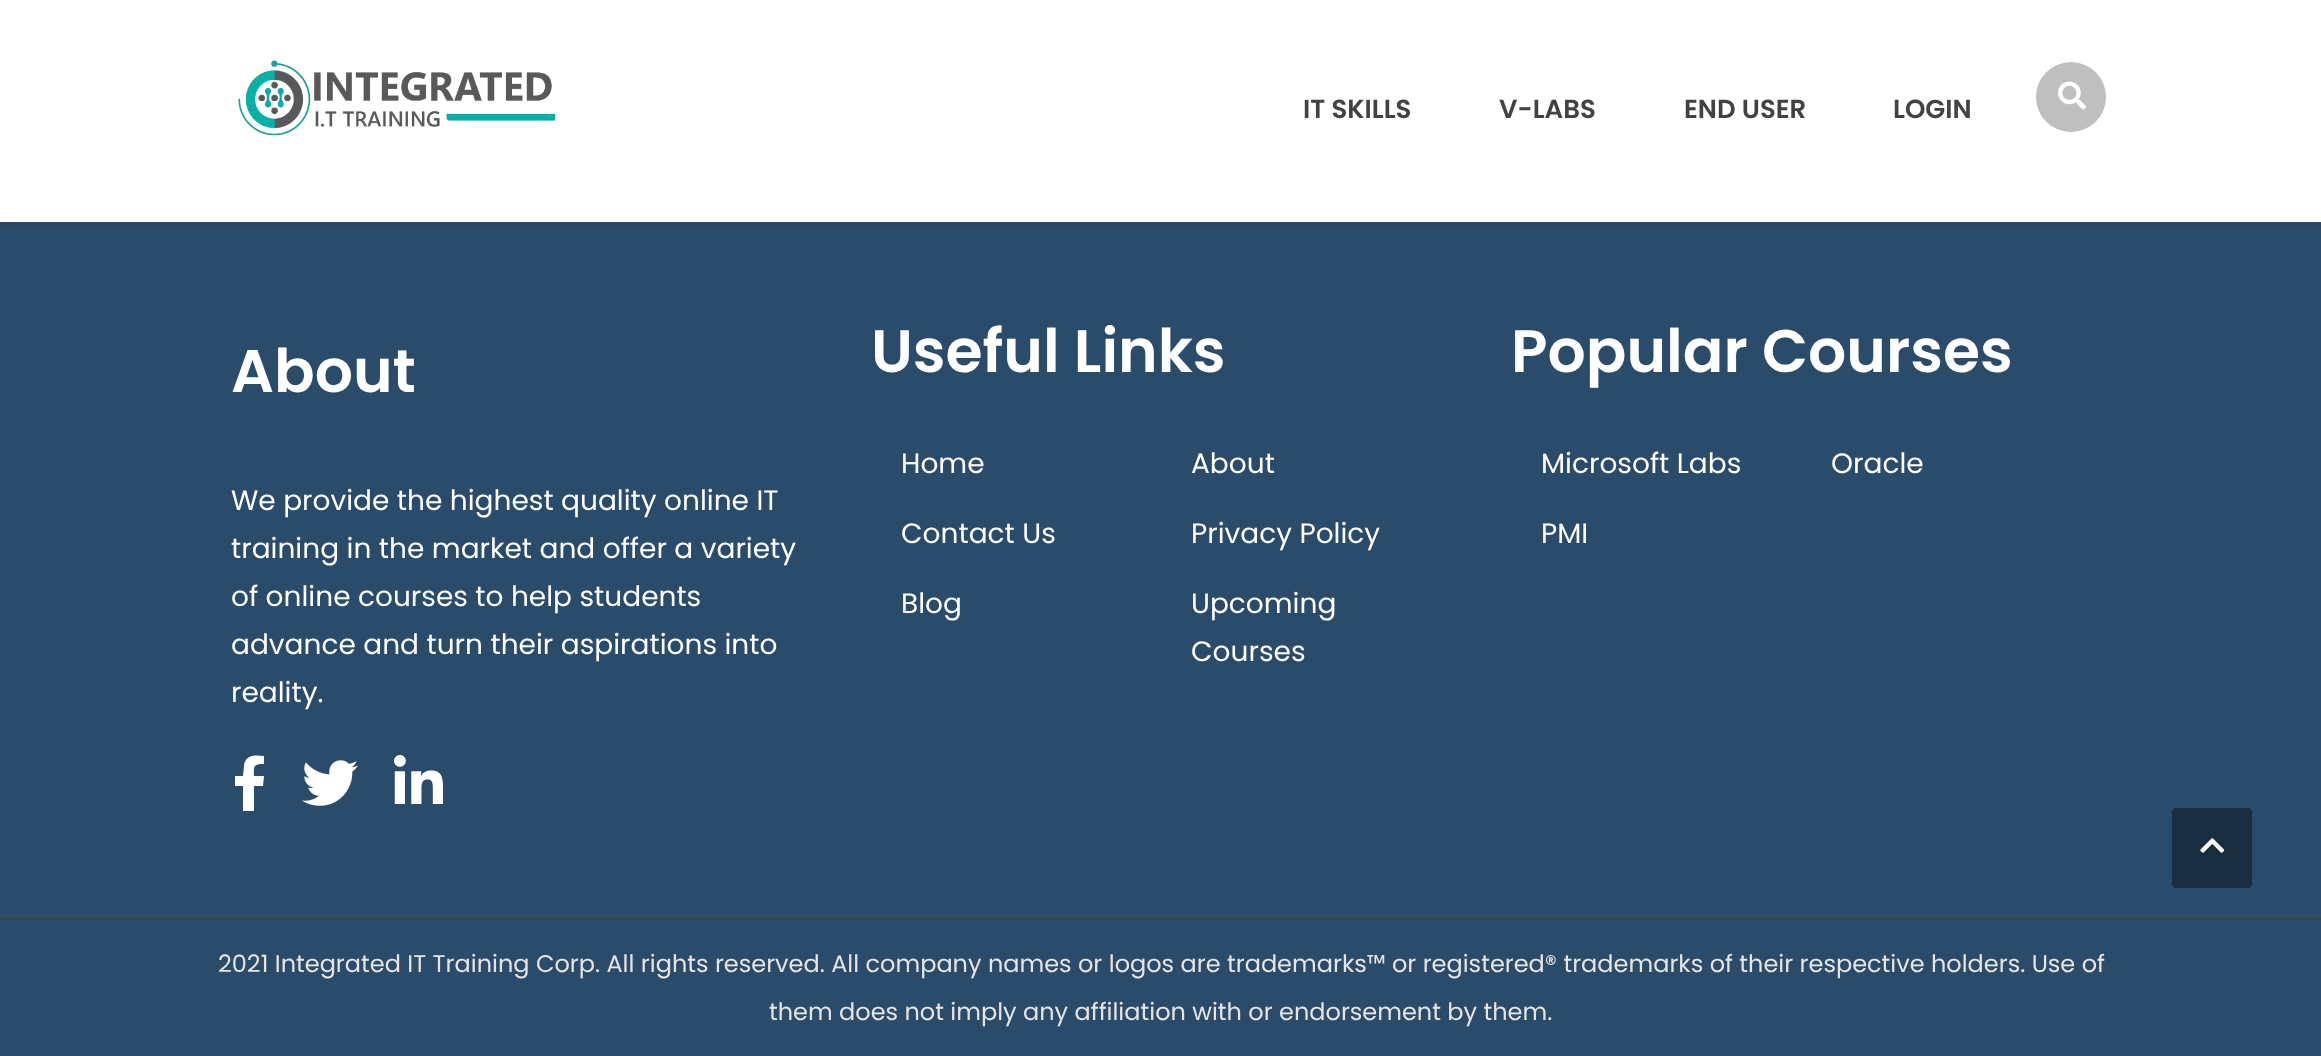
<!DOCTYPE html>
<meta charset="utf-8">
<style>body { margin: 0 } canvas { display: block }</style>
<canvas id="canvas" width="2321" height="1056"></canvas>
<img id="img1" src="images/1.png" hidden>
<img id="img2" src="images/2.png" hidden>
<img id="img3" src="images/3.png" hidden>
<img id="img4" src="images/4.png" hidden>
<img id="img5" src="images/5.png" hidden>
<script>
window.onload = function () {
    const canvas = document.getElementById('canvas');
    const context = canvas.getContext('2d');
    context.miterLimit = 4;
    context.fontKerning = 'normal';

    context.fillStyle = 'rgb(43, 75, 106)';
    context.fillRect(0, 0, 2321, 1056);
    context.fillStyle = 'rgba(0, 0, 0, 0.1)';
    context.filter = 'blur(2px)';
    context.beginPath();
    context.rect(0, 2, 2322, 222);
    context.fill();
    context.filter = 'none';
    context.fillStyle = 'rgb(255, 255, 255)';
    context.fillRect(0, 0, 2321, 222);
    context.drawImage(document.getElementById('img1'), 238, 60, 318, 76);
    context.fillStyle = 'rgb(191, 191, 191)';
    context.beginPath();
    context.arc(2071, 97, 35, 0, 2 * Math.PI);
    context.fill();
    context.drawImage(document.getElementById('img2'), 2058, 81, 28, 29);
    context.fillStyle = 'rgb(255, 255, 255)';
    context.beginPath();
    context.moveTo(263, 786);
    context.lineTo(254, 786);
    context.lineTo(254, 811);
    context.lineTo(243, 811);
    context.lineTo(243, 786);
    context.lineTo(235, 786);
    context.lineTo(235, 776);
    context.lineTo(243, 776);
    context.lineTo(244, 766);
    context.bezierCurveTo(245, 754, 256, 755, 264, 756);
    context.lineTo(264, 764);
    context.bezierCurveTo(253, 764, 254, 766, 254, 776);
    context.lineTo(264, 776);
    context.closePath();
    context.fill();
    context.drawImage(document.getElementById('img3'), 302, 760, 56, 46);
    context.drawImage(document.getElementById('img4'), 394, 755, 49, 49);
    context.fillStyle = 'rgb(57, 67, 72)';
    context.fillRect(0, 918, 2321, 2);
    context.fillStyle = 'rgb(26, 45, 64)';
    context.beginPath();
    context.roundRect(2172, 808, 80, 80, 4);
    context.fill();
    context.drawImage(document.getElementById('img5'), 2200, 838, 25, 15);
    context.font = '600 26px Poppins';
    context.fillStyle = 'rgb(66, 66, 66)';
    context.fillText('IT SKILLS', 1303, 118);
    context.fillText('V-LABS', 1499, 118);
    context.fillText('END USER', 1684, 118);
    context.fillText('LOGIN', 1893, 118);
    context.font = '600 60px Poppins';
    context.fillStyle = 'rgb(255, 255, 255)';
    context.fillText('About', 231, 392);
    context.font = '28px Poppins';
    context.fillText('We provide the highest quality online IT', 231, 510);
    context.fillText('training in the market and offer a variety', 231, 558);
    context.fillText('of online courses to help students', 231, 606);
    context.fillText('advance and turn their aspirations into', 231, 654);
    context.fillText('reality.', 231, 702);
    context.font = '600 60px Poppins';
    context.fillText('Useful Links', 871, 372);
    context.font = '28px Poppins';
    context.fillText('Home', 901, 473);
    context.fillText('About', 1191, 473);
    context.fillText('Contact Us', 901, 543);
    context.fillText('Privacy Policy', 1191, 543);
    context.fillText('Blog', 901, 613);
    context.fillText('Upcoming', 1191, 613);
    context.fillText('Courses', 1191, 661);
    context.font = '600 60px Poppins';
    context.fillText('Popular Courses', 1511, 372);
    context.font = '28px Poppins';
    context.fillText('Microsoft Labs', 1541, 473);
    context.fillText('Oracle', 1831, 473);
    context.fillText('PMI', 1541, 543);
    context.font = '24px Poppins';
    context.fillStyle = 'rgb(229, 229, 229)';
    context.fillText('2021 Integrated IT Training Corp. All rights reserved. All company names or logos are trademarks™ or registered® trademarks of their respective holders. Use of', 218, 972);
    context.fillText('them does not imply any affiliation with or endorsement by them.', 769, 1020);
};
</script>
